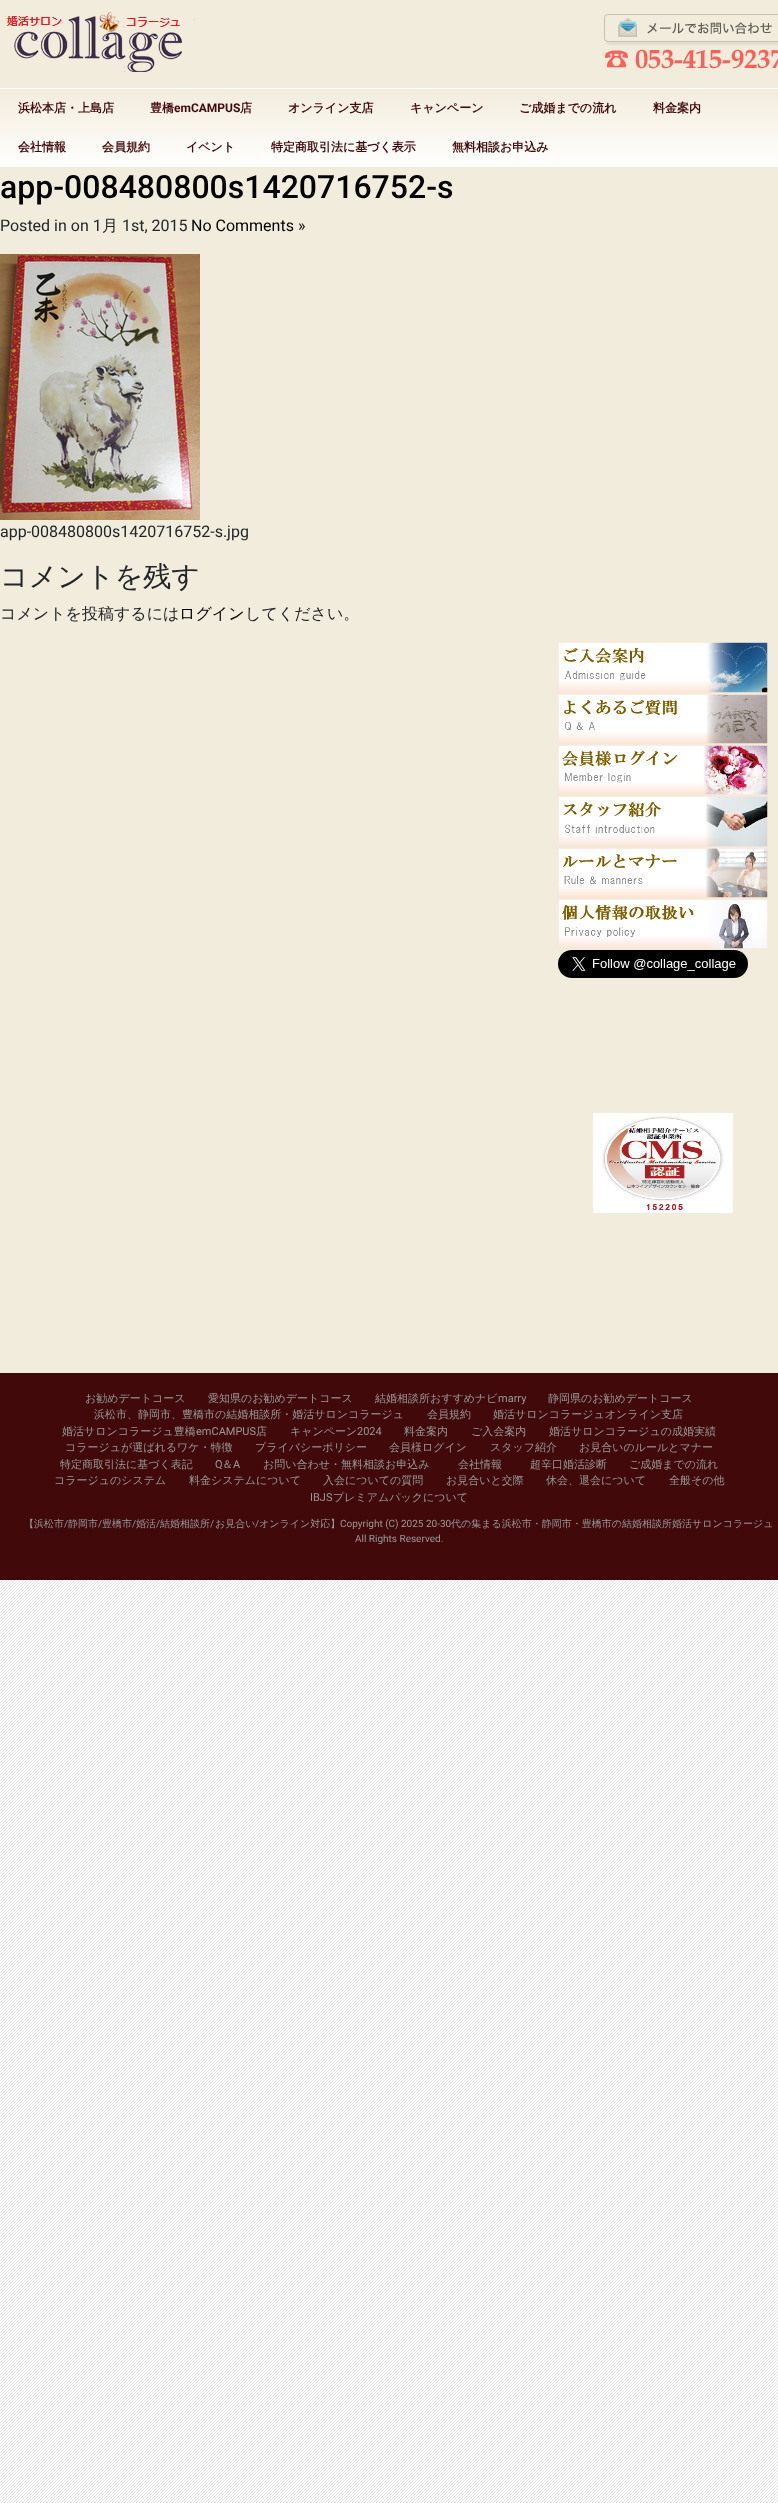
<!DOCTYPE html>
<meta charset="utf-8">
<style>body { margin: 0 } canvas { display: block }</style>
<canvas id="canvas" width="778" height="2503"></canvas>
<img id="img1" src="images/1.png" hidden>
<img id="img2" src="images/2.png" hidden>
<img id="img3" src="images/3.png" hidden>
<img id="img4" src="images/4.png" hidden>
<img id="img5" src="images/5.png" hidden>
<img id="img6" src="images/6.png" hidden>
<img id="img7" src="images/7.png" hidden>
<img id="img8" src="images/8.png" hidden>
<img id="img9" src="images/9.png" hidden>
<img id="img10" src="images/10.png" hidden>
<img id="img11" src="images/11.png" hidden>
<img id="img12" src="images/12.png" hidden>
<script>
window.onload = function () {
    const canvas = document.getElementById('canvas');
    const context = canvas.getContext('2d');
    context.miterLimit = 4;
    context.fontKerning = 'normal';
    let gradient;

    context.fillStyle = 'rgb(255, 255, 255)';
    context.fillRect(0, 0, 778, 2503);
    context.drawImage(document.getElementById('img1'), 0, 1580, 778, 923);
    context.fillStyle = 'rgb(242, 236, 220)';
    context.fillRect(0, 0, 778, 1373);
    context.drawImage(document.getElementById('img2'), 7, 12, 188, 60);
    context.drawImage(document.getElementById('img3'), 604, 14, 174, 55);
    gradient = context.createLinearGradient(389, 11, 389, 89);
    gradient.addColorStop(0, 'rgb(242, 236, 220)');
    gradient.addColorStop(1, 'rgb(255, 255, 255)');
    context.fillStyle = gradient;
    context.fillRect(0, 88, 778, 1);
    gradient = context.createLinearGradient(389, 89, 389, 167);
    gradient.addColorStop(0, 'rgb(242, 236, 220)');
    gradient.addColorStop(1, 'rgb(255, 255, 255)');
    context.fillStyle = gradient;
    context.fillRect(0, 95, 778, 72);
    context.drawImage(document.getElementById('img4'), 0, 254, 200, 266);
    context.drawImage(document.getElementById('img5'), 558, 642, 210, 51);
    context.drawImage(document.getElementById('img6'), 558, 694, 210, 50);
    context.drawImage(document.getElementById('img7'), 558, 745, 210, 50);
    context.drawImage(document.getElementById('img8'), 558, 796, 210, 51);
    context.drawImage(document.getElementById('img9'), 558, 848, 210, 50);
    context.drawImage(document.getElementById('img10'), 558, 899, 210, 50);
    context.drawImage(document.getElementById('img11'), 558, 950, 190, 28);
    context.drawImage(document.getElementById('img12'), 593, 1113, 140, 100);
    context.fillStyle = 'rgb(65, 9, 10)';
    context.fillRect(0, 1373, 778, 207);
    context.font = 'bold 12px WenQuanYi Zen Hei';
    context.fillText('浜松本店・上島店', 18, 112);
    context.fillText('豊橋', 150, 112);
    context.font = 'bold 12px Roboto';
    context.fillText('emCAMPUS', 174, 112);
    context.font = 'bold 12px WenQuanYi Zen Hei';
    context.fillText('店', 240, 112);
    context.fillText('オンライン支店', 288, 112);
    context.fillText('キャンペーン', 410, 112);
    context.fillText('ご成婚までの流れ', 519, 112);
    context.fillText('料金案内', 653, 112);
    context.fillText('会社情報', 18, 151);
    context.fillText('会員規約', 102, 151);
    context.fillText('イベント', 186, 151);
    context.fillText('特定商取引法に基づく表示', 271, 151);
    context.fillText('無料相談お申込み', 452, 151);
    context.font = '500 32px Roboto';
    context.fillStyle = 'rgb(0, 0, 0)';
    context.fillText('app-008480800s1420716752-s', 0, 198);
    context.font = '16px Roboto';
    context.fillStyle = 'rgb(33, 37, 41)';
    context.fillText('Posted in on 1', 0, 231);
    context.font = '500 16px WenQuanYi Zen Hei';
    context.fillText('月', 102, 231);
    context.font = '16px Roboto';
    context.fillText('1st, 2015', 122, 231);
    context.fillStyle = 'rgb(0, 0, 0)';
    context.fillText('No Comments »', 191, 231);
    context.fillStyle = 'rgb(33, 37, 41)';
    context.fillText('app-008480800s1420716752-s.jpg', 0, 537);
    context.font = '500 28px WenQuanYi Zen Hei';
    context.fillText('コメントを残す', 0, 586);
    context.font = '500 16px WenQuanYi Zen Hei';
    context.fillText('コメントを投稿するには', 0, 619);
    context.fillStyle = 'rgb(0, 0, 0)';
    context.fillText('ログイン', 179, 619);
    context.fillStyle = 'rgb(33, 37, 41)';
    context.fillText('してください。', 245, 619);
    context.font = '500 11px WenQuanYi Zen Hei';
    context.fillStyle = 'rgb(153, 153, 153)';
    context.fillText('お勧めデートコース', 85, 1402);
    context.fillText('愛知県のお勧めデートコース', 208, 1402);
    context.fillText('結婚相談所おすすめナビ', 375, 1402);
    context.font = '11px Roboto';
    context.fillText('marry', 498, 1402);
    context.font = '500 11px WenQuanYi Zen Hei';
    context.fillText('静岡県のお勧めデートコース', 548, 1402);
    context.fillText('浜松市、静岡市、豊橋市の結婚相談所・婚活サロンコラージュ', 94, 1418);
    context.fillText('会員規約', 427, 1418);
    context.fillText('婚活サロンコラージュオンライン支店', 493, 1418);
    context.fillText('婚活サロンコラージュ豊橋', 62, 1435);
    context.font = '11px Roboto';
    context.fillText('emCAMPUS', 196, 1435);
    context.font = '500 11px WenQuanYi Zen Hei';
    context.fillText('店', 256, 1435);
    context.fillText('キャンペーン', 290, 1435);
    context.font = '11px Roboto';
    context.fillText('2024', 357, 1435);
    context.font = '500 11px WenQuanYi Zen Hei';
    context.fillText('料金案内', 404, 1435);
    context.fillText('ご入会案内', 471, 1435);
    context.fillText('婚活サロンコラージュの成婚実績', 549, 1435);
    context.fillText('コラージュが選ばれるワケ・特徴', 65, 1451);
    context.fillText('プライバシーポリシー', 255, 1451);
    context.fillText('会員様ログイン', 389, 1451);
    context.fillText('スタッフ紹介', 490, 1451);
    context.fillText('お見合いのルールとマナー', 579, 1451);
    context.fillText('特定商取引法に基づく表記', 60, 1468);
    context.font = '11px Roboto';
    context.fillText('Q', 215, 1468);
    context.font = '500 11px WenQuanYi Zen Hei';
    context.fillText('＆', 222, 1468);
    context.font = '11px Roboto';
    context.fillText('A', 233, 1468);
    context.font = '500 11px WenQuanYi Zen Hei';
    context.fillText('お問い合わせ・無料相談お申込み', 263, 1468);
    context.fillText('会社情報', 458, 1468);
    context.fillText('超辛口婚活診断', 530, 1468);
    context.fillText('ご成婚までの流れ', 629, 1468);
    context.fillText('コラージュのシステム', 54, 1484);
    context.fillText('料金システムについて', 189, 1484);
    context.fillText('入会についての質問', 323, 1484);
    context.fillText('お見合いと交際', 446, 1484);
    context.fillText('休会、退会について', 546, 1484);
    context.fillText('全般その他', 669, 1484);
    context.font = '11px Roboto';
    context.fillText('IBJS', 310, 1501);
    context.font = '500 11px WenQuanYi Zen Hei';
    context.fillText('プレミアムパックについて', 333, 1501);
    context.font = '500 10px WenQuanYi Zen Hei';
    context.fillText('【浜松市', 24, 1527);
    context.font = '10px Roboto';
    context.fillText('/', 64, 1527);
    context.font = '500 10px WenQuanYi Zen Hei';
    context.fillText('静岡市', 68, 1527);
    context.font = '10px Roboto';
    context.fillText('/', 98, 1527);
    context.font = '500 10px WenQuanYi Zen Hei';
    context.fillText('豊橋市', 102, 1527);
    context.font = '10px Roboto';
    context.fillText('/', 132, 1527);
    context.font = '500 10px WenQuanYi Zen Hei';
    context.fillText('婚活', 136, 1527);
    context.font = '10px Roboto';
    context.fillText('/', 156, 1527);
    context.font = '500 10px WenQuanYi Zen Hei';
    context.fillText('結婚相談所', 160, 1527);
    context.font = '10px Roboto';
    context.fillText('/', 210, 1527);
    context.font = '500 10px WenQuanYi Zen Hei';
    context.fillText('お見合い', 215, 1527);
    context.font = '10px Roboto';
    context.fillText('/', 255, 1527);
    context.font = '500 10px WenQuanYi Zen Hei';
    context.fillText('オンライン対応】', 259, 1527);
    context.font = '10px Roboto';
    context.fillText('Copyright (C) 2025 20-30', 340, 1527);
    context.font = '500 10px WenQuanYi Zen Hei';
    context.fillText('代の集まる浜松市・静岡市・豊橋市の結婚相談所婚活サロンコラージュ', 451, 1527);
    context.font = '10px Roboto';
    context.fillText('All Rights Reserved.', 355, 1542);
};
</script>
